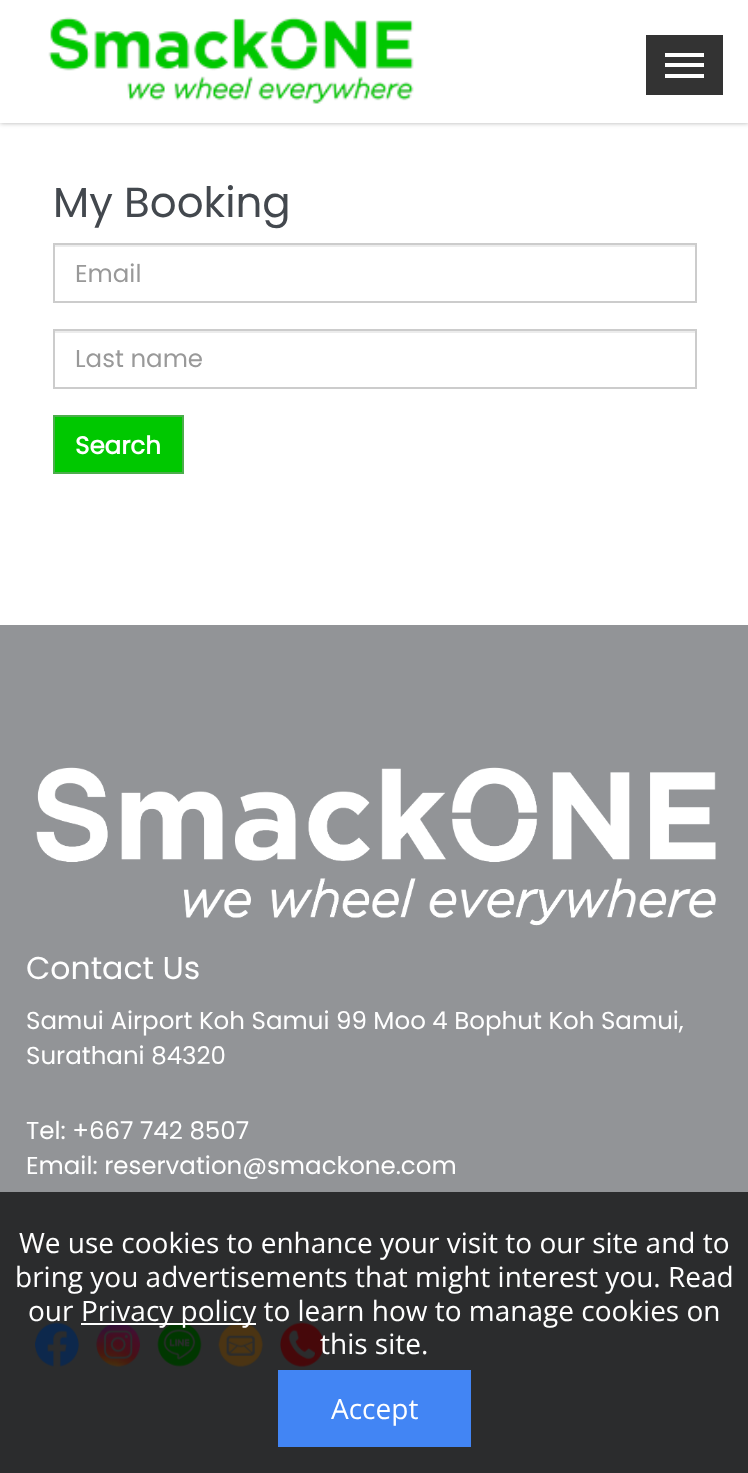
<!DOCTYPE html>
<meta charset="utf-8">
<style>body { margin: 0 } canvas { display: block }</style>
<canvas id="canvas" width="748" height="1473"></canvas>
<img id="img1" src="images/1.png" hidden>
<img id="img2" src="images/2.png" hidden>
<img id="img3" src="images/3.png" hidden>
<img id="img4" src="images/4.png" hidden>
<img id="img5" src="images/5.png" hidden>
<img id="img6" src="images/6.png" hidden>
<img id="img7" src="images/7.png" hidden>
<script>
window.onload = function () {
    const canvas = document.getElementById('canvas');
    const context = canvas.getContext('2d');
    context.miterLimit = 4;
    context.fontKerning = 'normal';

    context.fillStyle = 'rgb(255, 255, 255)';
    context.fillRect(0, 0, 748, 1473);
    context.save();
    context.beginPath();
    context.moveTo(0, 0);
    context.lineTo(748, 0);
    context.lineTo(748, 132);
    context.lineTo(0, 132);
    context.closePath();
    context.moveTo(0, 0);
    context.lineTo(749, 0);
    context.lineTo(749, 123);
    context.lineTo(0, 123);
    context.closePath();
    context.clip('evenodd');
    context.fillStyle = 'rgba(0, 0, 0, 0.3)';
    context.filter = 'blur(2.5px)';
    context.beginPath();
    context.rect(0, 0, 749, 123);
    context.fill();
    context.filter = 'none';
    context.restore();
    context.fillStyle = 'rgba(255, 255, 255, 0.95)';
    context.fillRect(0, 122, 748, 1);
    context.drawImage(document.getElementById('img1'), 48, 17, 366, 87);
    context.fillStyle = 'rgb(51, 51, 51)';
    context.fillRect(646, 35, 77, 60);
    context.fillStyle = 'rgb(255, 255, 255)';
    context.fillRect(665, 53, 39, 4);
    context.fillRect(665, 63, 39, 4);
    context.fillRect(665, 74, 39, 4);
    context.fillStyle = 'rgb(236, 236, 236)';
    context.fillRect(54, 245, 641, 2);
    context.strokeStyle = 'rgb(204, 204, 204)';
    context.lineWidth = 2;
    context.strokeRect(54, 244, 642, 58);
    context.fillRect(54, 331, 641, 2);
    context.strokeRect(54, 330, 642, 58);
    context.fillStyle = 'rgb(0, 200, 0)';
    context.beginPath();
    context.rect(54, 416, 129, 57);
    context.fill();
    context.strokeStyle = 'rgb(76, 174, 76)';
    context.stroke();
    context.fillStyle = 'rgb(146, 148, 151)';
    context.fillRect(0, 625, 748, 848);
    context.drawImage(document.getElementById('img2'), 36, 767, 680, 159);
    context.drawImage(document.getElementById('img3'), 35, 1322, 44, 45);
    context.drawImage(document.getElementById('img4'), 96, 1322, 44, 45);
    context.drawImage(document.getElementById('img5'), 157, 1321, 45, 46);
    context.drawImage(document.getElementById('img6'), 218, 1322, 45, 45);
    context.drawImage(document.getElementById('img7'), 280, 1321, 44, 46);
    context.fillStyle = 'rgba(0, 0, 0, 0.7)';
    context.fillRect(0, 1192, 748, 281);
    context.fillStyle = 'rgb(255, 255, 255)';
    context.fillRect(81, 1323, 175, 2);
    context.fillStyle = 'rgb(66, 133, 244)';
    context.fillRect(278, 1370, 193, 77);
    context.font = '42px Poppins';
    context.fillStyle = 'rgb(67, 72, 78)';
    context.fillText('My Booking', 53, 217);
    context.font = '24.5px Poppins';
    context.fillStyle = 'rgb(153, 153, 153)';
    context.fillText('Email', 75, 282);
    context.fillText('Last name', 75, 367);
    context.font = 'bold 24.5px Poppins';
    context.fillStyle = 'rgb(255, 255, 255)';
    context.fillText('Search', 75, 454);
    context.font = '31.5px Poppins';
    context.fillText('Contact Us', 26, 979);
    context.font = '24.5px Poppins';
    context.fillText('Samui Airport Koh Samui 99 Moo 4 Bophut Koh Samui,', 26, 1029);
    context.fillText('Surathani 84320', 26, 1064);
    context.fillText('Tel: +667 742 8507', 26, 1139);
    context.fillText('Email: reservation@smackone.com', 26, 1174);
    context.font = '28px Open Sans';
    context.fillText('We use cookies to enhance your visit to our site and to', 19, 1253);
    context.fillText('bring you advertisements that might interest you. Read', 15, 1287);
    context.fillText('our', 28, 1321);
    context.fillText('Privacy policy to learn how to manage cookies on', 81, 1321);
    context.fillText('this site.', 320, 1354);
    context.fillText('Accept', 331, 1419);
};
</script>
